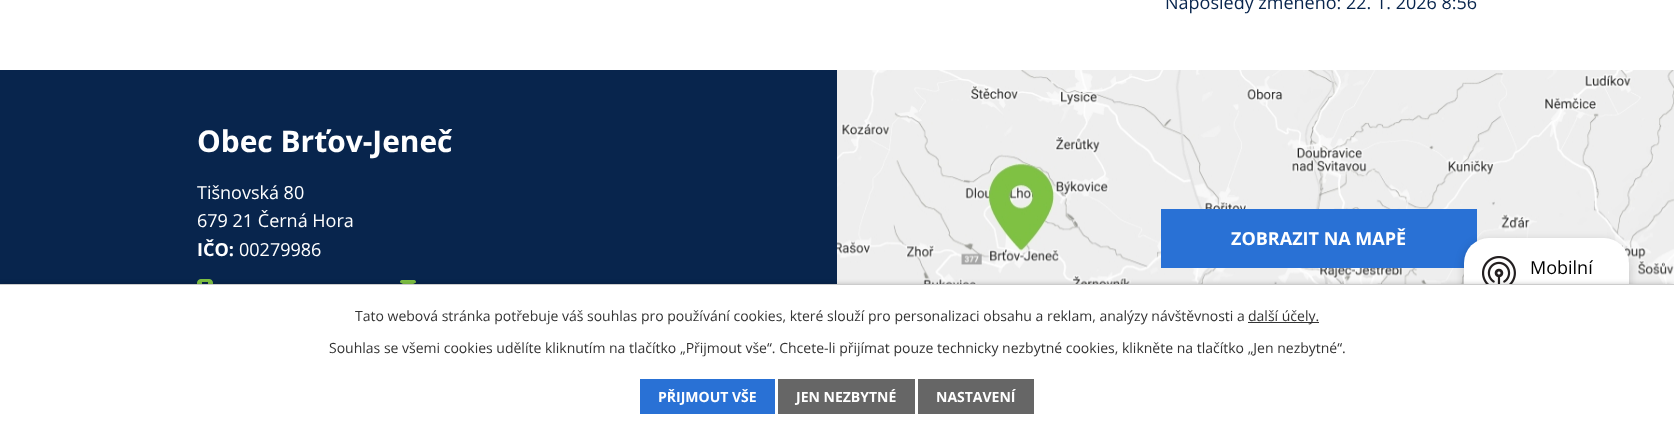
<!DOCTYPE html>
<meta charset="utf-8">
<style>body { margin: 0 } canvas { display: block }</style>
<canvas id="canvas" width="1674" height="433"></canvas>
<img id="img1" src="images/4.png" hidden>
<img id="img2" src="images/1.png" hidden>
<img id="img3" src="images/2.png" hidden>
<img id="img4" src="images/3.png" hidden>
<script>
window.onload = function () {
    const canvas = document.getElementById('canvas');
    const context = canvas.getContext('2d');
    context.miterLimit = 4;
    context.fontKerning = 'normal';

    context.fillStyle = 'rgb(255, 255, 255)';
    context.fillRect(0, 0, 1674, 433);
    context.drawImage(document.getElementById('img1'), 837, 70, 837, 214);
    context.fillStyle = 'rgb(41, 113, 213)';
    context.fillRect(1161, 209, 316, 59);
    context.fillStyle = 'rgba(0, 0, 0, 0.2)';
    context.filter = 'blur(5px)';
    context.beginPath();
    context.roundRect(1464, 241, 165, 150, 25);
    context.fill();
    context.filter = 'none';
    context.fillStyle = 'rgb(255, 255, 255)';
    context.beginPath();
    context.roundRect(1464, 238, 165, 150, 25);
    context.fill();
    context.drawImage(document.getElementById('img2'), 1482, 256, 34, 28);
    context.fillStyle = 'rgb(8, 37, 77)';
    context.fillRect(0, 70, 837, 214);
    context.drawImage(document.getElementById('img3'), 197, 279, 16, 5);
    context.drawImage(document.getElementById('img4'), 400, 280, 16, 4);
    context.fillStyle = 'rgba(0, 0, 0, 0.2)';
    context.filter = 'blur(2.5px)';
    context.beginPath();
    context.rect(0, 284, 1674, 149);
    context.fill();
    context.filter = 'none';
    context.fillStyle = 'rgb(255, 255, 255)';
    context.fillRect(0, 285, 1674, 148);
    context.fillStyle = 'rgb(204, 204, 204)';
    context.fillRect(0, 284, 1674, 1);
    context.fillStyle = 'rgb(51, 51, 51)';
    context.fillRect(1248, 322, 71, 1);
    context.fillStyle = 'rgb(41, 113, 213)';
    context.fillRect(640, 379, 135, 35);
    context.fillStyle = 'rgb(102, 102, 102)';
    context.fillRect(778, 379, 137, 35);
    context.fillRect(918, 379, 116, 35);
    context.font = '18px Open Sans';
    context.fillStyle = 'rgb(8, 37, 77)';
    context.fillText('Naposledy změněno: 22. 1. 2026 8:56', 1165, 9);
    context.fillStyle = 'rgb(0, 0, 0)';
    context.fillText('Mobilní', 1530, 274);
    context.font = 'bold 29.9px Open Sans';
    context.fillStyle = 'rgb(255, 255, 255)';
    context.fillText('Obec Brťov-Jeneč', 197, 152);
    context.font = '18px Open Sans';
    context.fillText('Tišnovská 80', 197, 199);
    context.fillText('679 21 Černá Hora', 197, 227);
    context.font = 'bold 18px Open Sans';
    context.fillText('IČO:', 197, 256);
    context.font = '18px Open Sans';
    context.fillText('00279986', 239, 256);
    context.font = 'bold 18px Open Sans';
    context.fillText('ZOBRAZIT NA MAPĚ', 1231, 245);
    context.font = '14px Open Sans';
    context.fillStyle = 'rgb(51, 51, 51)';
    context.fillText('Tato webová stránka potřebuje váš souhlas pro používání cookies, které slouží pro personalizaci obsahu a reklam, analýzy návštěvnosti a', 355, 321);
    context.fillText('další účely.', 1248, 321);
    context.fillText('Souhlas se všemi cookies udělíte kliknutím na tlačítko „Přijmout vše“. Chcete-li přijímat pouze technicky nezbytné cookies, klikněte na tlačítko „Jen nezbytné“.', 329, 353);
    context.font = 'bold 14px Open Sans';
    context.fillStyle = 'rgb(255, 255, 255)';
    context.fillText('PŘIJMOUT VŠE', 658, 402);
    context.fillText('JEN NEZBYTNÉ', 796, 402);
    context.fillText('NASTAVENÍ', 936, 402);
};
</script>
